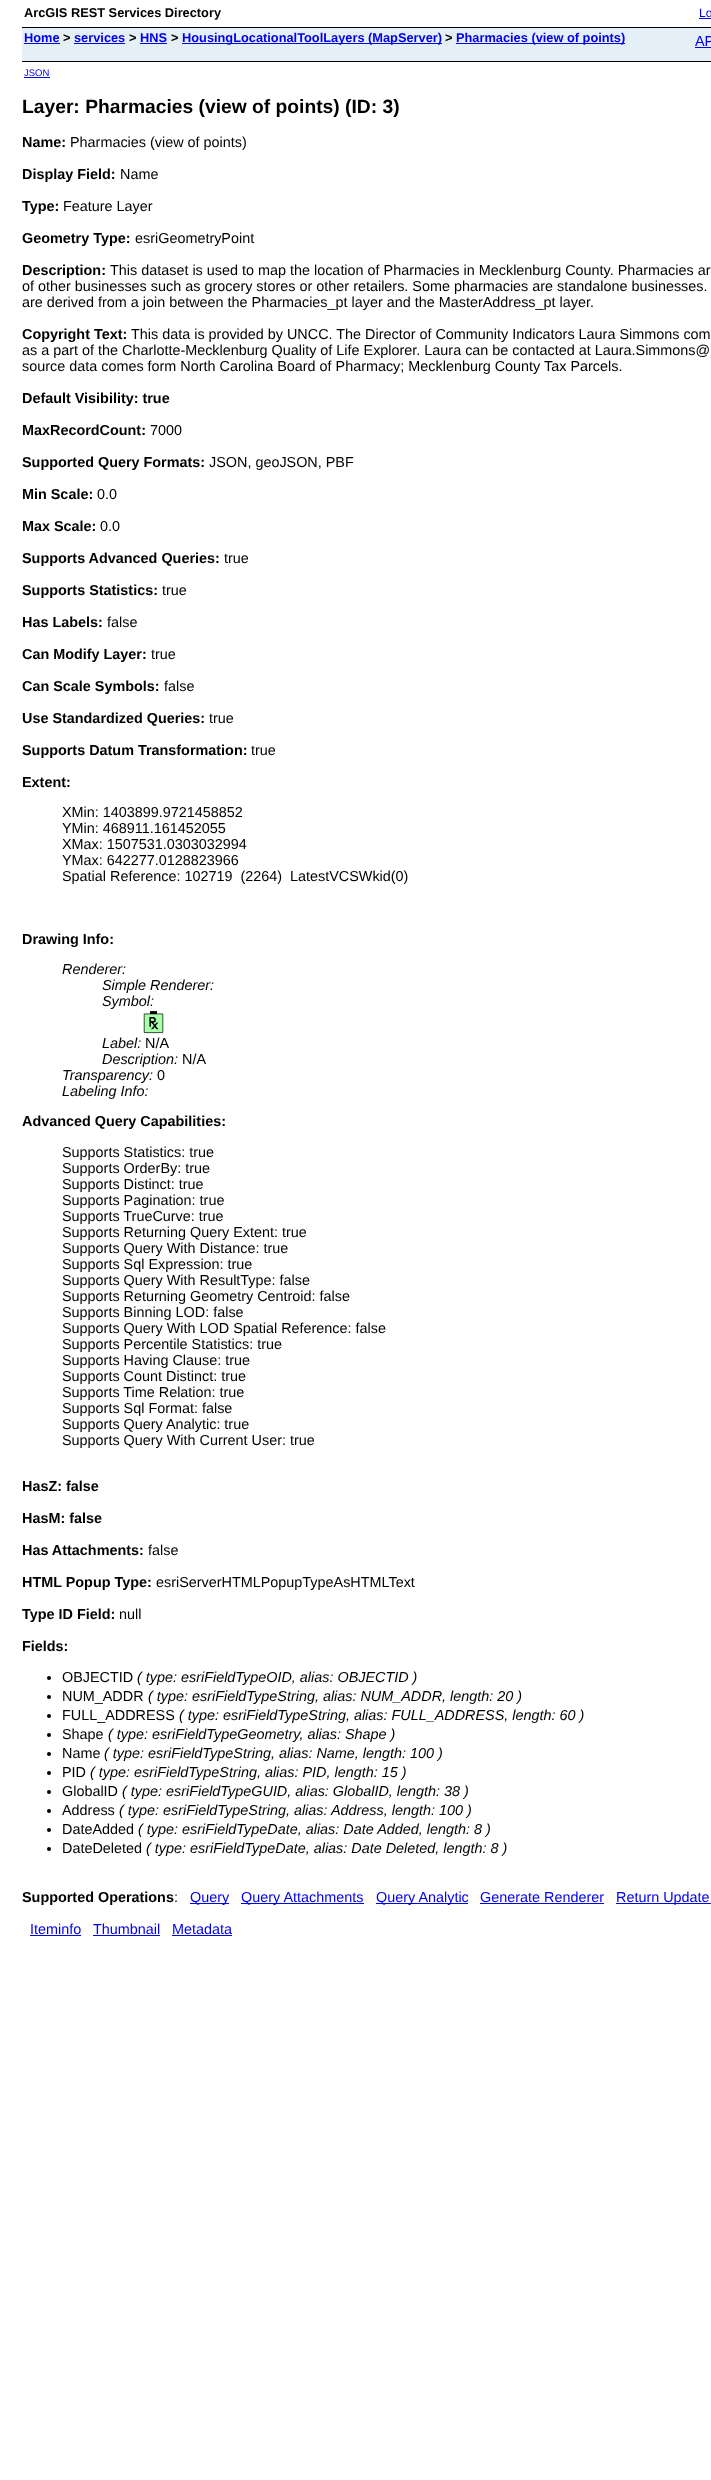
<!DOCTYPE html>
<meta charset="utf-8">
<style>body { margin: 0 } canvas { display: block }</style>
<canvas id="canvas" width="711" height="2480"></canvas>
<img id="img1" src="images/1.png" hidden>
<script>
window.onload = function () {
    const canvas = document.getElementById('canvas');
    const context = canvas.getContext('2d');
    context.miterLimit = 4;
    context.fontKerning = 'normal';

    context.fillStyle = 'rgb(255, 255, 255)';
    context.fillRect(0, 0, 711, 2480);
    context.fillStyle = 'rgb(0, 0, 238)';
    context.fillRect(699, 18, 12, 1);
    context.fillStyle = 'rgb(229, 239, 247)';
    context.fillRect(22, 28, 689, 33);
    context.fillStyle = 'rgb(0, 0, 0)';
    context.fillRect(22, 27, 689, 1);
    context.fillRect(22, 61, 689, 1);
    context.fillStyle = 'rgb(0, 0, 238)';
    context.fillRect(24, 43, 36, 1);
    context.fillRect(74, 43, 51, 1);
    context.fillRect(140, 43, 27, 1);
    context.fillRect(182, 43, 260, 1);
    context.fillRect(456, 43, 169, 1);
    context.fillRect(695, 47, 16, 1);
    context.fillRect(24, 77, 26, 1);
    context.drawImage(document.getElementById('img1'), 143, 1011, 21, 23);
    context.fillStyle = 'rgb(0, 0, 0)';
    context.beginPath();
    context.arc(49, 1678, 2, 0, 2 * Math.PI);
    context.fill();
    context.beginPath();
    context.arc(49, 1697, 2, 0, 2 * Math.PI);
    context.fill();
    context.beginPath();
    context.arc(49, 1716, 2, 0, 2 * Math.PI);
    context.fill();
    context.beginPath();
    context.arc(49, 1735, 2, 0, 2 * Math.PI);
    context.fill();
    context.beginPath();
    context.arc(49, 1754, 2, 0, 2 * Math.PI);
    context.fill();
    context.beginPath();
    context.arc(49, 1773, 2, 0, 2 * Math.PI);
    context.fill();
    context.beginPath();
    context.arc(49, 1792, 2, 0, 2 * Math.PI);
    context.fill();
    context.beginPath();
    context.arc(49, 1811, 2, 0, 2 * Math.PI);
    context.fill();
    context.beginPath();
    context.arc(49, 1830, 2, 0, 2 * Math.PI);
    context.fill();
    context.beginPath();
    context.arc(49, 1849, 2, 0, 2 * Math.PI);
    context.fill();
    context.fillStyle = 'rgb(0, 0, 238)';
    context.fillRect(190, 1903, 39, 1);
    context.fillRect(241, 1903, 123, 1);
    context.fillRect(376, 1903, 92, 1);
    context.fillRect(480, 1903, 124, 1);
    context.fillRect(616, 1903, 95, 1);
    context.fillRect(30, 1935, 51, 1);
    context.fillRect(93, 1935, 67, 1);
    context.fillRect(172, 1935, 60, 1);
    context.font = 'bold 12.8px Liberation Sans';
    context.fillStyle = 'rgb(0, 0, 0)';
    context.fillText('ArcGIS REST Services Directory', 24, 17);
    context.font = '12px Liberation Sans';
    context.fillStyle = 'rgb(0, 0, 238)';
    context.fillText('Lo', 699, 17);
    context.font = 'bold 12.8px Liberation Sans';
    context.fillText('Home', 24, 42);
    context.fillStyle = 'rgb(0, 0, 0)';
    context.fillText('>', 63, 42);
    context.fillStyle = 'rgb(0, 0, 238)';
    context.fillText('services', 74, 42);
    context.fillStyle = 'rgb(0, 0, 0)';
    context.fillText('>', 129, 42);
    context.fillStyle = 'rgb(0, 0, 238)';
    context.fillText('HNS', 140, 42);
    context.fillStyle = 'rgb(0, 0, 0)';
    context.fillText('>', 171, 42);
    context.fillStyle = 'rgb(0, 0, 238)';
    context.fillText('HousingLocationalToolLayers (MapServer)', 182, 42);
    context.fillStyle = 'rgb(0, 0, 0)';
    context.fillText('>', 445, 42);
    context.fillStyle = 'rgb(0, 0, 238)';
    context.fillText('Pharmacies (view of points)', 456, 42);
    context.font = '14.4px Liberation Sans';
    context.fillText('AP', 695, 46);
    context.font = '9.5px Liberation Sans';
    context.fillText('JSON', 24, 76);
    context.font = 'bold 19.25px Liberation Sans';
    context.fillStyle = 'rgb(0, 0, 0)';
    context.fillText('Layer: Pharmacies (view of points) (ID: 3)', 22, 113);
    context.font = 'bold 14.4px Liberation Sans';
    context.fillText('Name:', 22, 147);
    context.font = '14.4px Liberation Sans';
    context.fillText('Pharmacies (view of points)', 70, 147);
    context.font = 'bold 14.4px Liberation Sans';
    context.fillText('Display Field:', 22, 179);
    context.font = '14.4px Liberation Sans';
    context.fillText('Name', 120, 179);
    context.font = 'bold 14.4px Liberation Sans';
    context.fillText('Type:', 22, 211);
    context.font = '14.4px Liberation Sans';
    context.fillText('Feature Layer', 63, 211);
    context.font = 'bold 14.4px Liberation Sans';
    context.fillText('Geometry Type:', 22, 243);
    context.font = '14.4px Liberation Sans';
    context.fillText('esriGeometryPoint', 135, 243);
    context.font = 'bold 14.4px Liberation Sans';
    context.fillText('Description:', 22, 275);
    context.font = '14.4px Liberation Sans';
    context.fillText('This dataset is used to map the location of Pharmacies in Mecklenburg County. Pharmacies ar', 110, 275);
    context.fillText('of other businesses such as grocery stores or other retailers. Some pharmacies are standalone businesses.', 22, 291);
    context.fillText('are derived from a join between the Pharmacies_pt layer and the MasterAddress_pt layer.', 22, 307);
    context.font = 'bold 14.4px Liberation Sans';
    context.fillText('Copyright Text:', 22, 339);
    context.font = '14.4px Liberation Sans';
    context.fillText('This data is provided by UNCC. The Director of Community Indicators Laura Simmons com', 131, 339);
    context.fillText('as a part of the Charlotte-Mecklenburg Quality of Life Explorer. Laura can be contacted at Laura.Simmons@', 22, 355);
    context.fillText('source data comes form North Carolina Board of Pharmacy; Mecklenburg County Tax Parcels.', 22, 371);
    context.font = 'bold 14.4px Liberation Sans';
    context.fillText('Default Visibility: true', 22, 403);
    context.fillText('MaxRecordCount:', 22, 435);
    context.font = '14.4px Liberation Sans';
    context.fillText('7000', 150, 435);
    context.font = 'bold 14.4px Liberation Sans';
    context.fillText('Supported Query Formats:', 22, 467);
    context.font = '14.4px Liberation Sans';
    context.fillText('JSON, geoJSON, PBF', 209, 467);
    context.font = 'bold 14.4px Liberation Sans';
    context.fillText('Min Scale:', 22, 499);
    context.font = '14.4px Liberation Sans';
    context.fillText('0.0', 97, 499);
    context.font = 'bold 14.4px Liberation Sans';
    context.fillText('Max Scale:', 22, 531);
    context.font = '14.4px Liberation Sans';
    context.fillText('0.0', 100, 531);
    context.font = 'bold 14.4px Liberation Sans';
    context.fillText('Supports Advanced Queries:', 22, 563);
    context.font = '14.4px Liberation Sans';
    context.fillText('true', 224, 563);
    context.font = 'bold 14.4px Liberation Sans';
    context.fillText('Supports Statistics:', 22, 595);
    context.font = '14.4px Liberation Sans';
    context.fillText('true', 162, 595);
    context.font = 'bold 14.4px Liberation Sans';
    context.fillText('Has Labels:', 22, 627);
    context.font = '14.4px Liberation Sans';
    context.fillText('false', 107, 627);
    context.font = 'bold 14.4px Liberation Sans';
    context.fillText('Can Modify Layer:', 22, 659);
    context.font = '14.4px Liberation Sans';
    context.fillText('true', 151, 659);
    context.font = 'bold 14.4px Liberation Sans';
    context.fillText('Can Scale Symbols:', 22, 691);
    context.font = '14.4px Liberation Sans';
    context.fillText('false', 164, 691);
    context.font = 'bold 14.4px Liberation Sans';
    context.fillText('Use Standardized Queries:', 22, 723);
    context.font = '14.4px Liberation Sans';
    context.fillText('true', 209, 723);
    context.font = 'bold 14.4px Liberation Sans';
    context.fillText('Supports Datum Transformation:', 22, 755);
    context.font = '14.4px Liberation Sans';
    context.fillText('true', 251, 755);
    context.font = 'bold 14.4px Liberation Sans';
    context.fillText('Extent:', 22, 787);
    context.font = '14.4px Liberation Sans';
    context.fillText('XMin: 1403899.9721458852', 62, 817);
    context.fillText('YMin: 468911.161452055', 62, 833);
    context.fillText('XMax: 1507531.0303032994', 62, 849);
    context.fillText('YMax: 642277.0128823966', 62, 865);
    context.fillText('Spatial Reference: 102719  (2264)  LatestVCSWkid(0)', 62, 881);
    context.font = 'bold 14.4px Liberation Sans';
    context.fillText('Drawing Info:', 22, 944);
    context.font = 'italic 14.4px Liberation Sans';
    context.fillText('Renderer:', 62, 974);
    context.fillText('Simple Renderer:', 102, 990);
    context.fillText('Symbol:', 102, 1006);
    context.fillText('Label:', 102, 1048);
    context.font = '14.4px Liberation Sans';
    context.fillText('N/A', 145, 1048);
    context.font = 'italic 14.4px Liberation Sans';
    context.fillText('Description:', 102, 1064);
    context.font = '14.4px Liberation Sans';
    context.fillText('N/A', 182, 1064);
    context.font = 'italic 14.4px Liberation Sans';
    context.fillText('Transparency:', 62, 1080);
    context.font = '14.4px Liberation Sans';
    context.fillText('0', 157, 1080);
    context.font = 'italic 14.4px Liberation Sans';
    context.fillText('Labeling Info:', 62, 1096);
    context.font = 'bold 14.4px Liberation Sans';
    context.fillText('Advanced Query Capabilities:', 22, 1126);
    context.font = '14.4px Liberation Sans';
    context.fillText('Supports Statistics: true', 62, 1157);
    context.fillText('Supports OrderBy: true', 62, 1173);
    context.fillText('Supports Distinct: true', 62, 1189);
    context.fillText('Supports Pagination: true', 62, 1205);
    context.fillText('Supports TrueCurve: true', 62, 1221);
    context.fillText('Supports Returning Query Extent: true', 62, 1237);
    context.fillText('Supports Query With Distance: true', 62, 1253);
    context.fillText('Supports Sql Expression: true', 62, 1269);
    context.fillText('Supports Query With ResultType: false', 62, 1285);
    context.fillText('Supports Returning Geometry Centroid: false', 62, 1301);
    context.fillText('Supports Binning LOD: false', 62, 1317);
    context.fillText('Supports Query With LOD Spatial Reference: false', 62, 1333);
    context.fillText('Supports Percentile Statistics: true', 62, 1349);
    context.fillText('Supports Having Clause: true', 62, 1365);
    context.fillText('Supports Count Distinct: true', 62, 1381);
    context.fillText('Supports Time Relation: true', 62, 1397);
    context.fillText('Supports Sql Format: false', 62, 1413);
    context.fillText('Supports Query Analytic: true', 62, 1429);
    context.fillText('Supports Query With Current User: true', 62, 1445);
    context.font = 'bold 14.4px Liberation Sans';
    context.fillText('HasZ: false', 22, 1491);
    context.fillText('HasM: false', 22, 1523);
    context.fillText('Has Attachments:', 22, 1555);
    context.font = '14.4px Liberation Sans';
    context.fillText('false', 148, 1555);
    context.font = 'bold 14.4px Liberation Sans';
    context.fillText('HTML Popup Type:', 22, 1587);
    context.font = '14.4px Liberation Sans';
    context.fillText('esriServerHTMLPopupTypeAsHTMLText', 156, 1587);
    context.font = 'bold 14.4px Liberation Sans';
    context.fillText('Type ID Field:', 22, 1619);
    context.font = '14.4px Liberation Sans';
    context.fillText('null', 119, 1619);
    context.font = 'bold 14.4px Liberation Sans';
    context.fillText('Fields:', 22, 1651);
    context.font = '14.4px Liberation Sans';
    context.fillText('OBJECTID', 62, 1682);
    context.font = 'italic 14.4px Liberation Sans';
    context.fillText('( type: esriFieldTypeOID, alias: OBJECTID )', 137, 1682);
    context.font = '14.4px Liberation Sans';
    context.fillText('NUM_ADDR', 62, 1701);
    context.font = 'italic 14.4px Liberation Sans';
    context.fillText('( type: esriFieldTypeString, alias: NUM_ADDR, length: 20 )', 148, 1701);
    context.font = '14.4px Liberation Sans';
    context.fillText('FULL_ADDRESS', 62, 1720);
    context.font = 'italic 14.4px Liberation Sans';
    context.fillText('( type: esriFieldTypeString, alias: FULL_ADDRESS, length: 60 )', 179, 1720);
    context.font = '14.4px Liberation Sans';
    context.fillText('Shape', 62, 1739);
    context.font = 'italic 14.4px Liberation Sans';
    context.fillText('( type: esriFieldTypeGeometry, alias: Shape )', 108, 1739);
    context.font = '14.4px Liberation Sans';
    context.fillText('Name', 62, 1758);
    context.font = 'italic 14.4px Liberation Sans';
    context.fillText('( type: esriFieldTypeString, alias: Name, length: 100 )', 104, 1758);
    context.font = '14.4px Liberation Sans';
    context.fillText('PID', 62, 1777);
    context.font = 'italic 14.4px Liberation Sans';
    context.fillText('( type: esriFieldTypeString, alias: PID, length: 15 )', 90, 1777);
    context.font = '14.4px Liberation Sans';
    context.fillText('GlobalID', 62, 1796);
    context.font = 'italic 14.4px Liberation Sans';
    context.fillText('( type: esriFieldTypeGUID, alias: GlobalID, length: 38 )', 122, 1796);
    context.font = '14.4px Liberation Sans';
    context.fillText('Address', 62, 1815);
    context.font = 'italic 14.4px Liberation Sans';
    context.fillText('( type: esriFieldTypeString, alias: Address, length: 100 )', 119, 1815);
    context.font = '14.4px Liberation Sans';
    context.fillText('DateAdded', 62, 1834);
    context.font = 'italic 14.4px Liberation Sans';
    context.fillText('( type: esriFieldTypeDate, alias: Date Added, length: 8 )', 138, 1834);
    context.font = '14.4px Liberation Sans';
    context.fillText('DateDeleted', 62, 1853);
    context.font = 'italic 14.4px Liberation Sans';
    context.fillText('( type: esriFieldTypeDate, alias: Date Deleted, length: 8 )', 146, 1853);
    context.font = 'bold 14.4px Liberation Sans';
    context.fillText('Supported Operations', 22, 1902);
    context.font = '14.4px Liberation Sans';
    context.fillText(':', 174, 1902);
    context.fillStyle = 'rgb(0, 0, 238)';
    context.fillText('Query', 190, 1902);
    context.fillText('Query Attachments', 241, 1902);
    context.fillText('Query Analytic', 376, 1902);
    context.fillText('Generate Renderer', 480, 1902);
    context.fillText('Return Update', 616, 1902);
    context.fillText('Iteminfo', 30, 1934);
    context.fillText('Thumbnail', 93, 1934);
    context.fillText('Metadata', 172, 1934);
};
</script>
